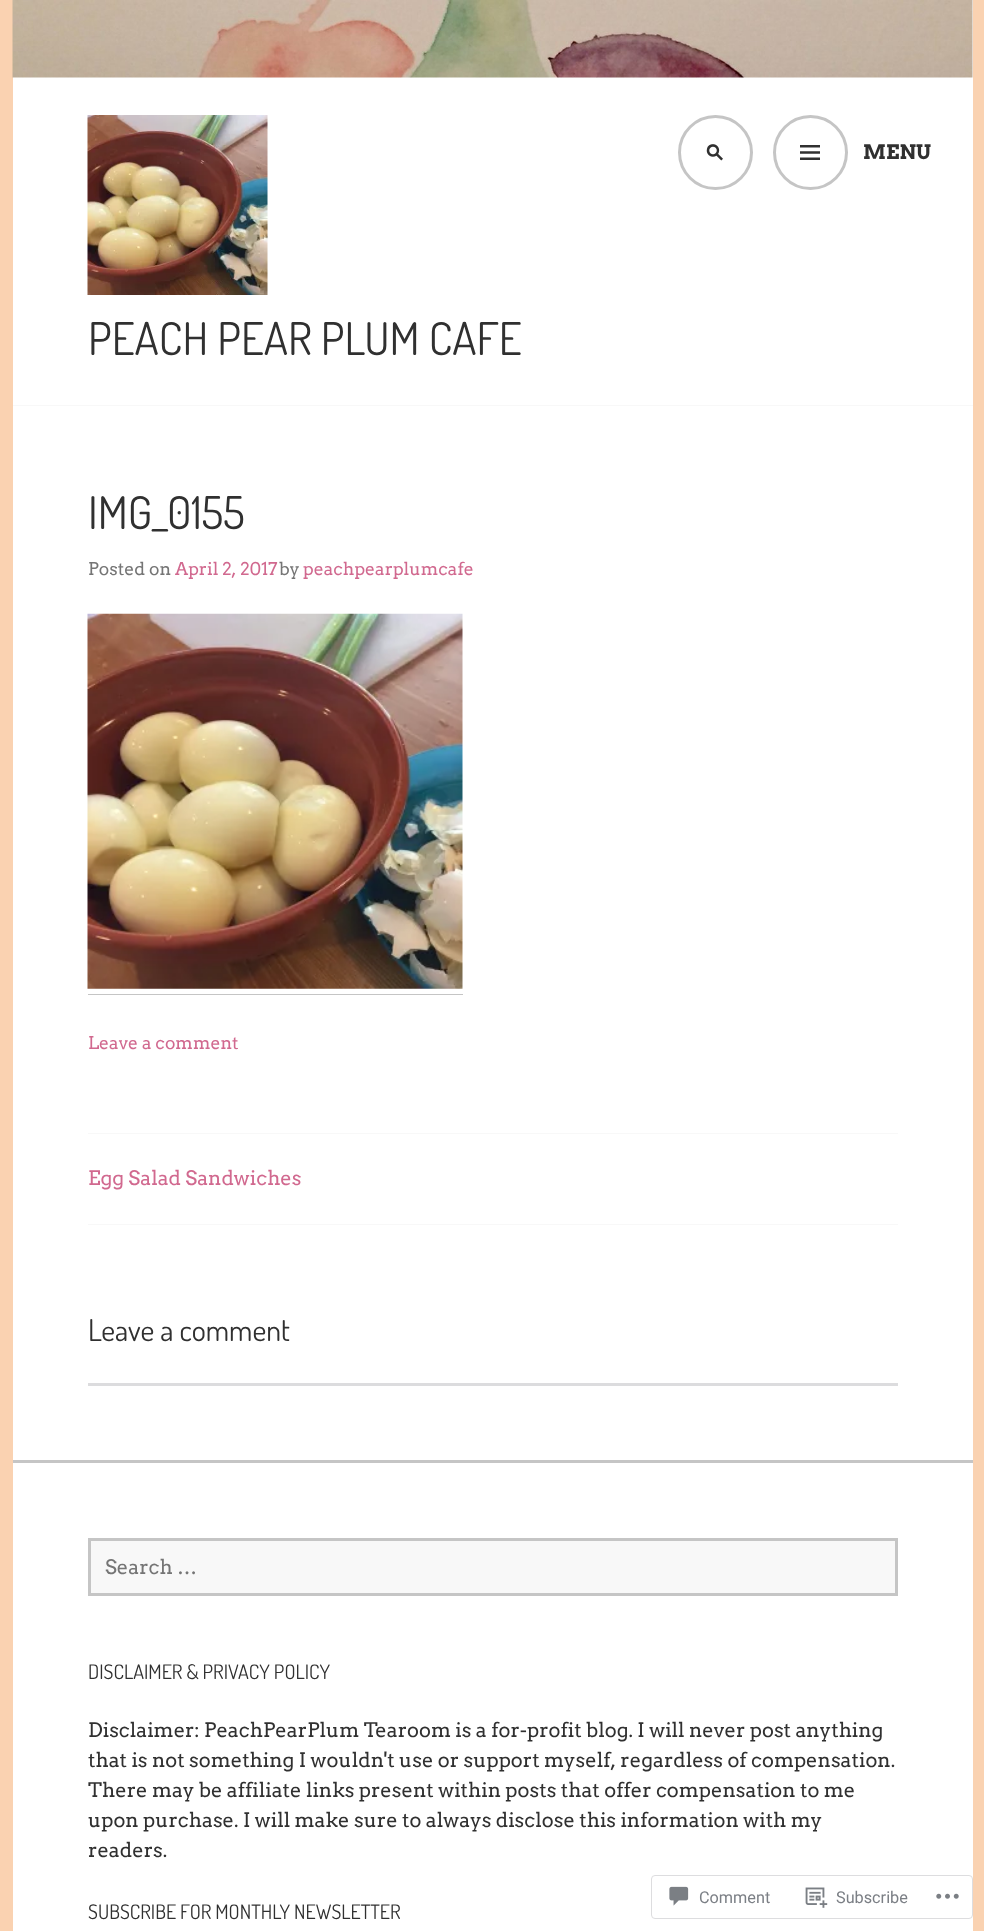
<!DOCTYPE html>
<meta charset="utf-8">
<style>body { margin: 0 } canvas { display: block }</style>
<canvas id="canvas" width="984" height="1931"></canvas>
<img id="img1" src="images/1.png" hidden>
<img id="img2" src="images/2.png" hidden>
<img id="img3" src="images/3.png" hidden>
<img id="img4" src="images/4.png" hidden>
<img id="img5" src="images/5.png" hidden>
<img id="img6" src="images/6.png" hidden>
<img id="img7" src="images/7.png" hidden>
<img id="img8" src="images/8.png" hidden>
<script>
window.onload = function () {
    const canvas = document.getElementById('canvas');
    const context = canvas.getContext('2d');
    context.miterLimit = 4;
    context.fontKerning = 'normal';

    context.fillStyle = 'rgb(250, 210, 177)';
    context.fillRect(0, 0, 984, 1931);
    context.fillStyle = 'rgb(255, 255, 255)';
    context.fillRect(13, 0, 960, 405);
    context.fillStyle = 'rgb(248, 248, 248)';
    context.fillRect(13, 405, 960, 1);
    context.drawImage(document.getElementById('img1'), 12, 0, 961, 78);
    context.beginPath();
    context.arc(715.5, 152.5, 36, 0, 2 * Math.PI);
    context.strokeStyle = 'rgb(197, 197, 197)';
    context.lineWidth = 3;
    context.stroke();
    context.drawImage(document.getElementById('img2'), 706, 144, 17, 17);
    context.beginPath();
    context.arc(810.5, 152.5, 36, 0, 2 * Math.PI);
    context.stroke();
    context.drawImage(document.getElementById('img3'), 800, 145, 20, 15);
    context.drawImage(document.getElementById('img4'), 87, 115, 181, 180);
    context.fillStyle = 'rgb(255, 255, 255)';
    context.fillRect(13, 406, 960, 1525);
    context.drawImage(document.getElementById('img5'), 87, 613, 376, 376);
    context.fillStyle = 'rgb(197, 197, 197)';
    context.fillRect(88, 994, 375, 1);
    context.fillStyle = 'rgb(248, 248, 248)';
    context.fillRect(88, 1133, 810, 1);
    context.fillRect(88, 1224, 810, 1);
    context.fillStyle = 'rgb(220, 220, 222)';
    context.fillRect(88, 1383, 810, 3);
    context.fillStyle = 'rgb(197, 197, 197)';
    context.fillRect(13, 1460, 960, 3);
    context.fillStyle = 'rgb(248, 248, 248)';
    context.beginPath();
    context.rect(89.5, 1539.5, 807, 55);
    context.fill();
    context.stroke();
    context.beginPath();
    context.roundRect(651.5, 1875.5, 321, 43, 3.5);
    context.strokeStyle = 'rgb(221, 221, 223)';
    context.lineWidth = 1;
    context.stroke();
    context.drawImage(document.getElementById('img6'), 669, 1886, 20, 20);
    context.drawImage(document.getElementById('img7'), 805, 1887, 23, 21);
    context.drawImage(document.getElementById('img8'), 936, 1893, 23, 6);
    context.font = 'bold 20px Arvo';
    context.fillStyle = 'rgb(48, 48, 48)';
    context.fillText('MENU', 863, 159);
    context.font = '45px Dosis';
    context.fillText('PEACH PEAR PLUM CAFE', 88, 355);
    context.fillText('IMG_0155', 88, 529);
    context.font = '17.5px Arvo';
    context.fillStyle = 'rgb(117, 117, 117)';
    context.fillText('Posted on', 88, 575);
    context.fillStyle = 'rgb(209, 105, 143)';
    context.fillText('April 2, 2017', 175, 575);
    context.fillStyle = 'rgb(117, 117, 117)';
    context.fillText('by', 279, 575);
    context.fillStyle = 'rgb(209, 105, 143)';
    context.fillText('peachpearplumcafe', 303, 575);
    context.fillText('Leave a comment', 88, 1049);
    context.font = '20px Arvo';
    context.fillText('Egg Salad Sandwiches', 88, 1185);
    context.font = '30px Dosis';
    context.fillStyle = 'rgb(48, 48, 48)';
    context.fillText('Leave a comment', 88, 1341);
    context.font = '20px Arvo';
    context.fillStyle = 'rgb(117, 117, 117)';
    context.fillText('Search …', 105, 1574);
    context.font = '20px Dosis';
    context.fillStyle = 'rgb(48, 48, 48)';
    context.fillText('DISCLAIMER & PRIVACY POLICY', 88, 1679);
    context.font = '20px Arvo';
    context.fillText('Disclaimer: PeachPearPlum Tearoom is a for-profit blog. I will never post anything', 88, 1737);
    context.fillText('that is not something I wouldn\'t use or support myself, regardless of compensation.', 88, 1767);
    context.fillText('There may be affiliate links present within posts that offer compensation to me', 88, 1797);
    context.fillText('upon purchase. I will make sure to always disclose this information with my', 88, 1827);
    context.fillText('readers.', 88, 1857);
    context.font = '20px Dosis';
    context.fillText('SUBSCRIBE FOR MONTHLY NEWSLETTER', 88, 1919);
    context.font = '16.25px Roboto';
    context.fillStyle = 'rgb(123, 127, 133)';
    context.fillText('Comment', 699, 1903);
    context.fillText('Subscribe', 836, 1903);
};
</script>
